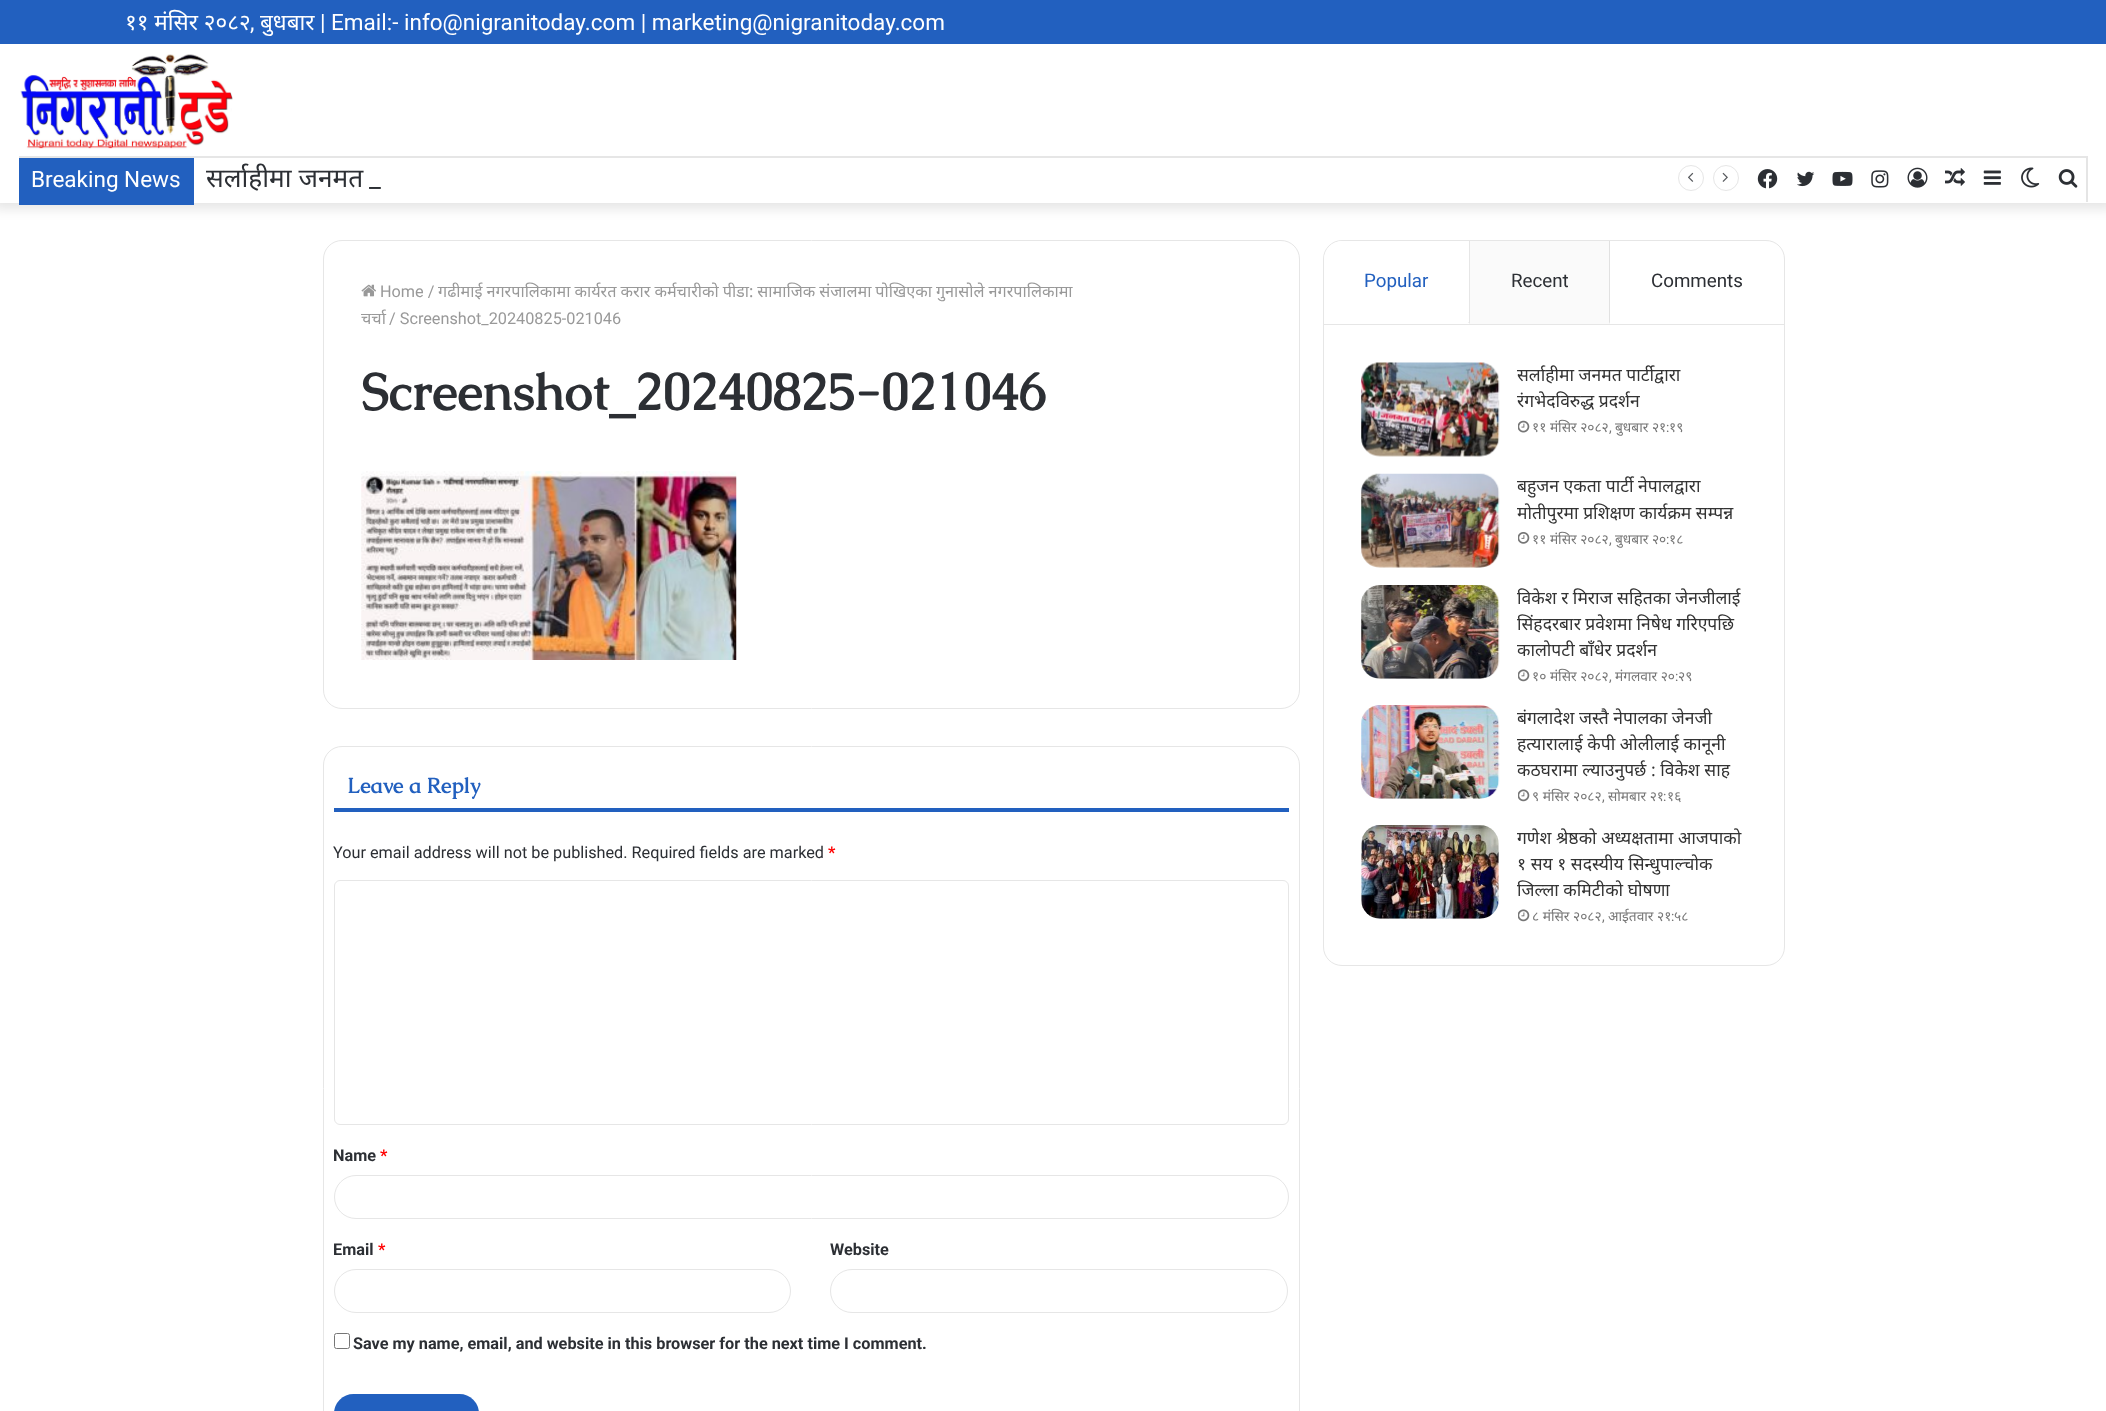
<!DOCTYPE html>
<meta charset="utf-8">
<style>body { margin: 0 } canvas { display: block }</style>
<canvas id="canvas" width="2106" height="1411"></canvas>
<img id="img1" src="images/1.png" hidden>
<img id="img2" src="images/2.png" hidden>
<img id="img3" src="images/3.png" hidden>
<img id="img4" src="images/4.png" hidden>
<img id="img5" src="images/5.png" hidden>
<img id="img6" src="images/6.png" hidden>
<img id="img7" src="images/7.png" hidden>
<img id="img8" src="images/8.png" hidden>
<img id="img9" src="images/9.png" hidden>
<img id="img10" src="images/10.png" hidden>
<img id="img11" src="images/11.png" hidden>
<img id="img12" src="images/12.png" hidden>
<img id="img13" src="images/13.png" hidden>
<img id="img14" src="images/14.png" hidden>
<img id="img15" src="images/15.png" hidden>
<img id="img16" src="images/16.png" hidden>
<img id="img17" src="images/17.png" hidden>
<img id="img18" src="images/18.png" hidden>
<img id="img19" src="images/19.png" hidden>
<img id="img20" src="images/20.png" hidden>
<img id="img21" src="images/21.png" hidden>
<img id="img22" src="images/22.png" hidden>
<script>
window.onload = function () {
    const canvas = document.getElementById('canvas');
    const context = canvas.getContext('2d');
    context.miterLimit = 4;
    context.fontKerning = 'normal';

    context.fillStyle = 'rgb(34, 96, 191)';
    context.fillRect(0, 0, 2106, 1411);
    context.fillStyle = 'rgb(255, 255, 255)';
    context.fillRect(0, 203, 2106, 1208);
    context.save();
    context.beginPath();
    context.rect(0, 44, 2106, 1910);
    context.clip();
    context.fillStyle = 'rgba(0, 0, 0, 0.1)';
    context.filter = 'blur(6px)';
    context.beginPath();
    context.rect(-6, 38, 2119, 171);
    context.fill();
    context.filter = 'none';
    context.restore();
    context.fillRect(0, 44, 2106, 159);
    context.drawImage(document.getElementById('img1'), 20, 54, 213, 95);
    context.fillStyle = 'rgb(230, 230, 230)';
    context.beginPath();
    context.moveTo(19, 156);
    context.lineTo(2088, 156);
    context.lineTo(2086, 158);
    context.lineTo(19, 158);
    context.closePath();
    context.fill();
    context.fillStyle = 'rgba(0, 0, 0, 0.1)';
    context.beginPath();
    context.moveTo(2088, 156);
    context.lineTo(2088, 202);
    context.lineTo(2086, 202);
    context.lineTo(2086, 158);
    context.closePath();
    context.fill();
    context.fillStyle = 'rgb(34, 96, 191)';
    context.fillRect(19, 158, 175, 47);
    context.beginPath();
    context.arc(1691, 178, 12.5, 0, 2 * Math.PI);
    context.strokeStyle = 'rgb(230, 230, 230)';
    context.stroke();
    context.drawImage(document.getElementById('img2'), 1688, 172, 6, 10);
    context.beginPath();
    context.arc(1726, 178, 12.5, 0, 2 * Math.PI);
    context.stroke();
    context.drawImage(document.getElementById('img3'), 1722, 172, 6, 10);
    context.drawImage(document.getElementById('img4'), 1757, 169, 21, 20);
    context.drawImage(document.getElementById('img5'), 1797, 171, 18, 16);
    context.drawImage(document.getElementById('img6'), 1832, 171, 21, 15);
    context.drawImage(document.getElementById('img7'), 1871, 170, 18, 18);
    context.drawImage(document.getElementById('img8'), 1907, 167, 21, 21);
    context.drawImage(document.getElementById('img9'), 1945, 168, 20, 18);
    context.drawImage(document.getElementById('img10'), 1983, 170, 18, 15);
    context.drawImage(document.getElementById('img11'), 2021, 167, 19, 21);
    context.drawImage(document.getElementById('img12'), 2058, 169, 20, 19);
    context.beginPath();
    context.roundRect(323.5, 240.5, 976, 468, 18.5);
    context.stroke();
    context.drawImage(document.getElementById('img13'), 361, 284, 15, 13);
    context.drawImage(document.getElementById('img14'), 361, 471, 376, 189);
    context.beginPath();
    context.roundRect(323.5, 746.5, 976, 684, 18.5);
    context.stroke();
    context.fillRect(334, 808, 955, 4);
    context.beginPath();
    context.roundRect(334.5, 880.5, 954, 244, 5.5);
    context.stroke();
    context.beginPath();
    context.roundRect(334.5, 1175.5, 954, 43, 21.5);
    context.stroke();
    context.beginPath();
    context.roundRect(334.5, 1269.5, 456, 43, 21.5);
    context.stroke();
    context.beginPath();
    context.roundRect(830.5, 1269.5, 457, 43, 21.5);
    context.stroke();
    context.beginPath();
    context.roundRect(334.5, 1333.5, 15, 15, 2);
    context.strokeStyle = 'rgb(118, 118, 118)';
    context.stroke();
    context.beginPath();
    context.roundRect(334, 1394, 145, 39, 22);
    context.fill();
    context.beginPath();
    context.roundRect(1323.5, 240.5, 461, 725, 18.5);
    context.strokeStyle = 'rgb(230, 230, 230)';
    context.stroke();
    context.fillStyle = 'rgb(230, 230, 230)';
    context.fillRect(1324, 324, 460, 1);
    context.fillStyle = 'rgb(255, 255, 255)';
    context.beginPath();
    context.roundRect(1324, 241, 146, 83, [19, 0, 0, 0]);
    context.fill();
    context.fillStyle = 'rgb(230, 230, 230)';
    context.beginPath();
    context.moveTo(1470, 241);
    context.lineTo(1470, 324);
    context.lineTo(1468, 322);
    context.lineTo(1469, 322);
    context.lineTo(1469, 241);
    context.closePath();
    context.fill();
    context.fillStyle = 'rgb(250, 250, 250)';
    context.fillRect(1470, 241, 140, 83);
    context.fillStyle = 'rgb(225, 225, 225)';
    context.beginPath();
    context.moveTo(1610, 241);
    context.lineTo(1610, 324);
    context.lineTo(1609, 322);
    context.lineTo(1609, 241);
    context.closePath();
    context.fill();
    context.drawImage(document.getElementById('img15'), 1361, 362, 139, 95);
    context.drawImage(document.getElementById('img16'), 1518, 420, 12, 13);
    context.drawImage(document.getElementById('img17'), 1361, 473, 139, 95);
    context.drawImage(document.getElementById('img18'), 1518, 532, 12, 12);
    context.drawImage(document.getElementById('img19'), 1361, 585, 139, 94);
    context.drawImage(document.getElementById('img20'), 1518, 669, 12, 13);
    context.drawImage(document.getElementById('img21'), 1361, 705, 139, 94);
    context.drawImage(document.getElementById('img20'), 1518, 789, 12, 13);
    context.drawImage(document.getElementById('img22'), 1361, 825, 138, 94);
    context.drawImage(document.getElementById('img20'), 1518, 909, 12, 13);
    context.font = '22.5px Noto Sans';
    context.fillStyle = 'rgb(255, 255, 255)';
    context.fillText('११ मंसिर २०८२', 125, 30);
    context.font = '22.5px Roboto';
    context.fillText('| Email:- info@nigranitoday.com | marketing@nigranitoday.com', 320, 30);
    context.fillText(',', 250, 30);
    context.font = '22.5px Noto Sans';
    context.fillText('बुधबार', 260, 30);
    context.font = '22.5px Roboto';
    context.fillText('Breaking News', 31, 187);
    context.font = '26.25px Noto Sans';
    context.fillStyle = 'rgb(44, 47, 52)';
    context.fillText('सर्लाहीमा जनमत', 206, 187);
    context.font = '26.25px Roboto';
    context.fillText('_', 369, 187);
    context.font = '16.25px Roboto';
    context.fillStyle = 'rgb(153, 153, 153)';
    context.fillText('Home /', 380, 297);
    context.wordSpacing = '-0.25px';
    context.font = '16.25px Noto Sans';
    context.fillText('गढीमाई नगरपालिकामा कार्यरत करार कर्मचारीको पीडा: सामाजिक संजालमा पोखिएका गुनासोले नगरपालिकामा', 438, 297);
    context.wordSpacing = '0px';
    context.fillText('चर्चा', 361, 324);
    context.font = '16.25px Roboto';
    context.fillText('/ Screenshot_20240825-021046', 389, 324);
    context.font = 'bold 51.25px Caudex';
    context.fillStyle = 'rgb(44, 47, 52)';
    context.fillText('Screenshot_20240825-021046', 361, 410);
    context.font = 'bold 21.25px Caudex';
    context.fillStyle = 'rgb(34, 96, 191)';
    context.fillText('Leave a Reply', 347, 793);
    context.font = '16.25px Roboto';
    context.fillStyle = 'rgb(44, 47, 52)';
    context.fillText('Your email address will not be published. Required fields are marked', 333, 858);
    context.font = 'bold 16.25px Roboto';
    context.fillStyle = 'rgb(255, 0, 0)';
    context.fillText('*', 828, 858);
    context.fillStyle = 'rgb(44, 47, 52)';
    context.fillText('Name', 333, 1161);
    context.fillStyle = 'rgb(255, 0, 0)';
    context.fillText('*', 380, 1161);
    context.fillStyle = 'rgb(44, 47, 52)';
    context.fillText('Email', 333, 1255);
    context.fillStyle = 'rgb(255, 0, 0)';
    context.fillText('*', 378, 1255);
    context.fillStyle = 'rgb(44, 47, 52)';
    context.fillText('Website', 830, 1255);
    context.fillText('Save my name, email, and website in this browser for the next time I comment.', 353, 1349);
    context.font = '18.75px Roboto';
    context.fillStyle = 'rgb(34, 96, 191)';
    context.fillText('Popular', 1364, 287);
    context.fillStyle = 'rgb(44, 47, 52)';
    context.fillText('Recent', 1511, 287);
    context.fillText('Comments', 1651, 287);
    context.font = '17.5px Noto Sans';
    context.fillStyle = 'rgb(51, 51, 51)';
    context.fillText('सर्लाहीमा जनमत पार्टीद्वारा', 1517, 381);
    context.fillText('रंगभेदविरुद्ध प्रदर्शन', 1517, 407);
    context.font = '13.75px Noto Sans';
    context.fillStyle = 'rgb(118, 118, 118)';
    context.fillText('११ मंसिर २०८२', 1532, 432);
    context.font = '13.75px Roboto';
    context.fillText(':', 1666, 432);
    context.font = '13.75px Noto Sans';
    context.fillText('१९', 1669, 432);
    context.font = '13.75px Roboto';
    context.fillText(',', 1609, 432);
    context.font = '13.75px Noto Sans';
    context.fillText('बुधबार २१', 1615, 432);
    context.font = '17.5px Noto Sans';
    context.fillStyle = 'rgb(51, 51, 51)';
    context.fillText('बहुजन एकता पार्टी नेपालद्वारा', 1517, 492);
    context.fillText('मोतीपुरमा प्रशिक्षण कार्यक्रम सम्पन्न', 1517, 519);
    context.font = '13.75px Noto Sans';
    context.fillStyle = 'rgb(118, 118, 118)';
    context.fillText('११ मंसिर २०८२', 1532, 544);
    context.font = '13.75px Roboto';
    context.fillText(':', 1666, 544);
    context.font = '13.75px Noto Sans';
    context.fillText('१८', 1669, 544);
    context.font = '13.75px Roboto';
    context.fillText(',', 1609, 544);
    context.font = '13.75px Noto Sans';
    context.fillText('बुधबार २०', 1615, 544);
    context.font = '17.5px Noto Sans';
    context.fillStyle = 'rgb(51, 51, 51)';
    context.fillText('विकेश र मिराज सहितका जेनजीलाई', 1517, 604);
    context.fillText('सिंहदरबार प्रवेशमा निषेध गरिएपछि', 1517, 630);
    context.fillText('कालोपटी बाँधेर प्रदर्शन', 1517, 656);
    context.font = '13.75px Noto Sans';
    context.fillStyle = 'rgb(118, 118, 118)';
    context.fillText('१० मंसिर २०८२', 1532, 681);
    context.font = '13.75px Roboto';
    context.fillText(',', 1609, 681);
    context.font = '13.75px Noto Sans';
    context.fillText('मंगलवार २०', 1615, 681);
    context.font = '13.75px Roboto';
    context.fillText(':', 1675, 681);
    context.font = '13.75px Noto Sans';
    context.fillText('२९', 1678, 681);
    context.font = '17.5px Noto Sans';
    context.fillStyle = 'rgb(51, 51, 51)';
    context.fillText('बंगलादेश जस्तै नेपालका जेनजी', 1517, 724);
    context.fillText('हत्यारालाई केपी ओलीलाई कानूनी', 1517, 750);
    context.fillText('कठघरामा ल्याउनुपर्छ : विकेश साह', 1517, 776);
    context.font = '13.75px Noto Sans';
    context.fillStyle = 'rgb(118, 118, 118)';
    context.fillText('९ मंसिर २०८२', 1532, 801);
    context.font = '13.75px Roboto';
    context.fillText(',', 1602, 801);
    context.font = '13.75px Noto Sans';
    context.fillText('सोमबार २१', 1608, 801);
    context.font = '13.75px Roboto';
    context.fillText(':', 1663, 801);
    context.font = '13.75px Noto Sans';
    context.fillText('१६', 1667, 801);
    context.font = '17.5px Noto Sans';
    context.fillStyle = 'rgb(51, 51, 51)';
    context.fillText('गणेश श्रेष्ठको अध्यक्षतामा आजपाको', 1517, 844);
    context.fillText('१ सय १ सदस्यीय सिन्धुपाल्चोक', 1517, 870);
    context.fillText('जिल्ला कमिटीको घोषणा', 1517, 896);
    context.font = '13.75px Noto Sans';
    context.fillStyle = 'rgb(118, 118, 118)';
    context.fillText('८ मंसिर २०८२', 1532, 921);
    context.font = '13.75px Roboto';
    context.fillText(',', 1602, 921);
    context.font = '13.75px Noto Sans';
    context.fillText('आईतवार २१', 1608, 921);
    context.font = '13.75px Roboto';
    context.fillText(':', 1671, 921);
    context.font = '13.75px Noto Sans';
    context.fillText('५८', 1674, 921);
};
</script>
